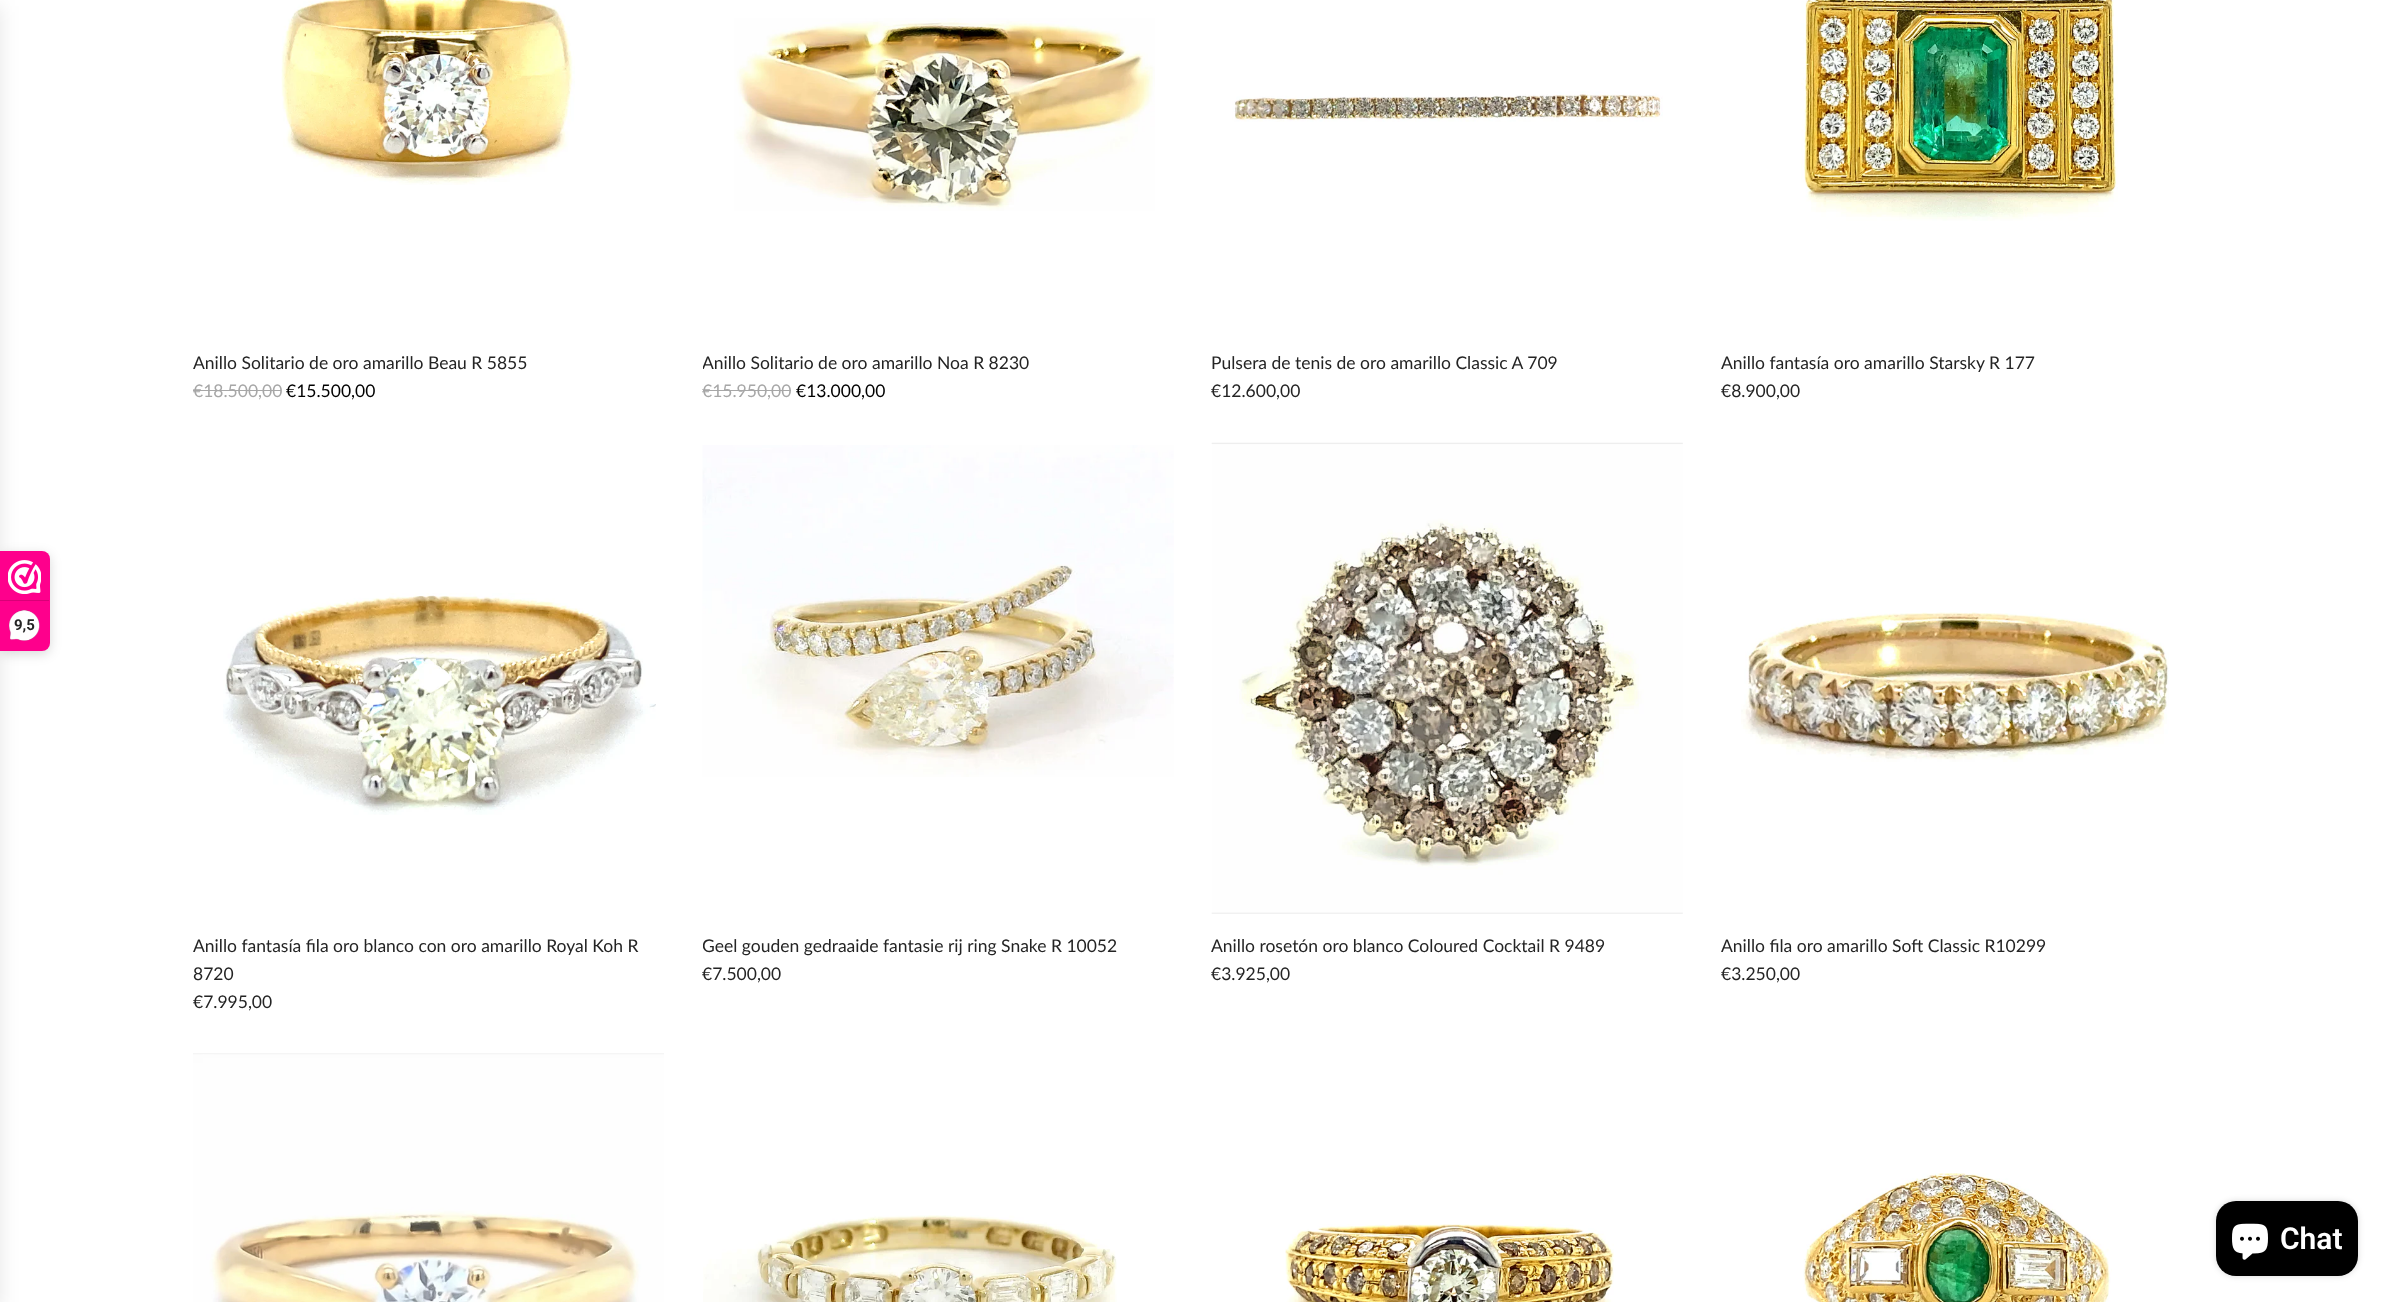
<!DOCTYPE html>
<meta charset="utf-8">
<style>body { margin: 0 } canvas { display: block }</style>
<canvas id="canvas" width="2385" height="1302"></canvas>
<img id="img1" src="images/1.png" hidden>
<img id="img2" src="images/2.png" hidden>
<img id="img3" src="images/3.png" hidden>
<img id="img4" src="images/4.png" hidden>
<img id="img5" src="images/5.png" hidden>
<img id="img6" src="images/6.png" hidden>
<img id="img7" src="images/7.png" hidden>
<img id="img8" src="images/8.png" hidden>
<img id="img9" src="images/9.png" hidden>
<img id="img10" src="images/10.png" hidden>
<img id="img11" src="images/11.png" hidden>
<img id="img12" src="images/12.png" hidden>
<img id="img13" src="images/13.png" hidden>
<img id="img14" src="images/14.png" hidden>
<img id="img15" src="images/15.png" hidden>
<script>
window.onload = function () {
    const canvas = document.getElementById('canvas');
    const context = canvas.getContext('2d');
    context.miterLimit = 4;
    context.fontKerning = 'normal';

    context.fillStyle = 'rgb(255, 255, 255)';
    context.fillRect(0, 0, 2385, 1302);
    context.fillStyle = 'rgba(0, 0, 0, 0.15)';
    context.filter = 'blur(6px)';
    context.beginPath();
    context.roundRect(0, 554, 50, 100, 8);
    context.fill();
    context.filter = 'none';
    context.fillStyle = 'rgba(0, 0, 0, 0.1)';
    context.filter = 'blur(9.5px)';
    context.beginPath();
    context.rect(-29, 6, 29, 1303);
    context.fill();
    context.filter = 'none';
    context.fillStyle = 'rgb(254, 0, 140)';
    context.beginPath();
    context.roundRect(0, 551, 50, 100, [0, 8, 8, 0]);
    context.fill();
    context.drawImage(document.getElementById('img1'), 8, 560, 33, 34);
    context.fillStyle = 'rgb(216, 0, 119)';
    context.fillRect(0, 600, 49, 1);
    context.drawImage(document.getElementById('img2'), 9, 610, 31, 31);
    context.drawImage(document.getElementById('img3'), 281, 0, 294, 185);
    context.fillStyle = 'rgb(167, 167, 167)';
    context.fillRect(193, 390, 88, 1);
    context.drawImage(document.getElementById('img4'), 734, 18, 421, 193);
    context.fillRect(703, 390, 88, 1);
    context.drawImage(document.getElementById('img5'), 1232, 91, 431, 31);
    context.drawImage(document.getElementById('img6'), 1801, 0, 317, 221);
    context.drawImage(document.getElementById('img7'), 223, 593, 433, 222);
    context.drawImage(document.getElementById('img8'), 702, 445, 472, 332);
    context.drawImage(document.getElementById('img9'), 1211, 442, 472, 472);
    context.drawImage(document.getElementById('img10'), 1741, 612, 428, 150);
    context.drawImage(document.getElementById('img11'), 193, 1053, 471, 249);
    context.drawImage(document.getElementById('img12'), 703, 1215, 414, 87);
    context.drawImage(document.getElementById('img13'), 1285, 1224, 329, 78);
    context.drawImage(document.getElementById('img14'), 1803, 1173, 309, 129);
    context.fillStyle = 'rgba(0, 0, 0, 0.15)';
    context.filter = 'blur(3px)';
    context.beginPath();
    context.roundRect(2216, 1201, 142, 75, 20);
    context.fill();
    context.filter = 'none';
    context.fillStyle = 'rgb(0, 0, 0)';
    context.beginPath();
    context.roundRect(2216, 1201, 142, 75, 20);
    context.fill();
    context.drawImage(document.getElementById('img15'), 2232, 1223, 36, 37);
    context.font = 'bold 15px Roboto';
    context.fillStyle = 'rgb(36, 36, 36)';
    context.fillText('9,5', 14, 630);
    context.font = '17.5px Lato';
    context.fillText('Anillo Solitario de oro amarillo Beau R 5855', 193, 369);
    context.fillStyle = 'rgb(167, 167, 167)';
    context.fillText('€18.500,00', 193, 397);
    context.fillStyle = 'rgb(0, 0, 0)';
    context.fillText('€15.500,00', 286, 397);
    context.save();
    context.beginPath();
    context.rect(703, 349, 471, 29);
    context.clip();
    context.fillStyle = 'rgb(36, 36, 36)';
    context.fillText('Anillo Solitario de oro amarillo Noa R 8230', 702, 369);
    context.restore();
    context.fillStyle = 'rgb(167, 167, 167)';
    context.fillText('€15.950,00', 702, 397);
    context.fillStyle = 'rgb(0, 0, 0)';
    context.fillText('€13.000,00', 796, 397);
    context.fillStyle = 'rgb(36, 36, 36)';
    context.fillText('Pulsera de tenis de oro amarillo Classic A 709', 1211, 369);
    context.fillText('€12.600,00', 1211, 397);
    context.fillText('Anillo fantasía oro amarillo Starsky R 177', 1721, 369);
    context.fillText('€8.900,00', 1721, 397);
    context.fillText('Anillo fantasía fila oro blanco con oro amarillo Royal Koh R', 193, 952);
    context.fillText('8720', 193, 980);
    context.fillText('€7.995,00', 193, 1008);
    context.save();
    context.beginPath();
    context.rect(703, 933, 471, 27);
    context.clip();
    context.fillText('Geel gouden gedraaide fantasie rij ring Snake R 10052', 702, 952);
    context.restore();
    context.fillText('€7.500,00', 702, 980);
    context.fillText('Anillo rosetón oro blanco Coloured Cocktail R 9489', 1211, 952);
    context.fillText('€3.925,00', 1211, 980);
    context.fillText('Anillo fila oro amarillo Soft Classic R10299', 1721, 952);
    context.fillText('€3.250,00', 1721, 980);
    context.font = '600 30px Roboto';
    context.fillStyle = 'rgb(255, 255, 255)';
    context.fillText('Chat', 2280, 1249);
};
</script>
